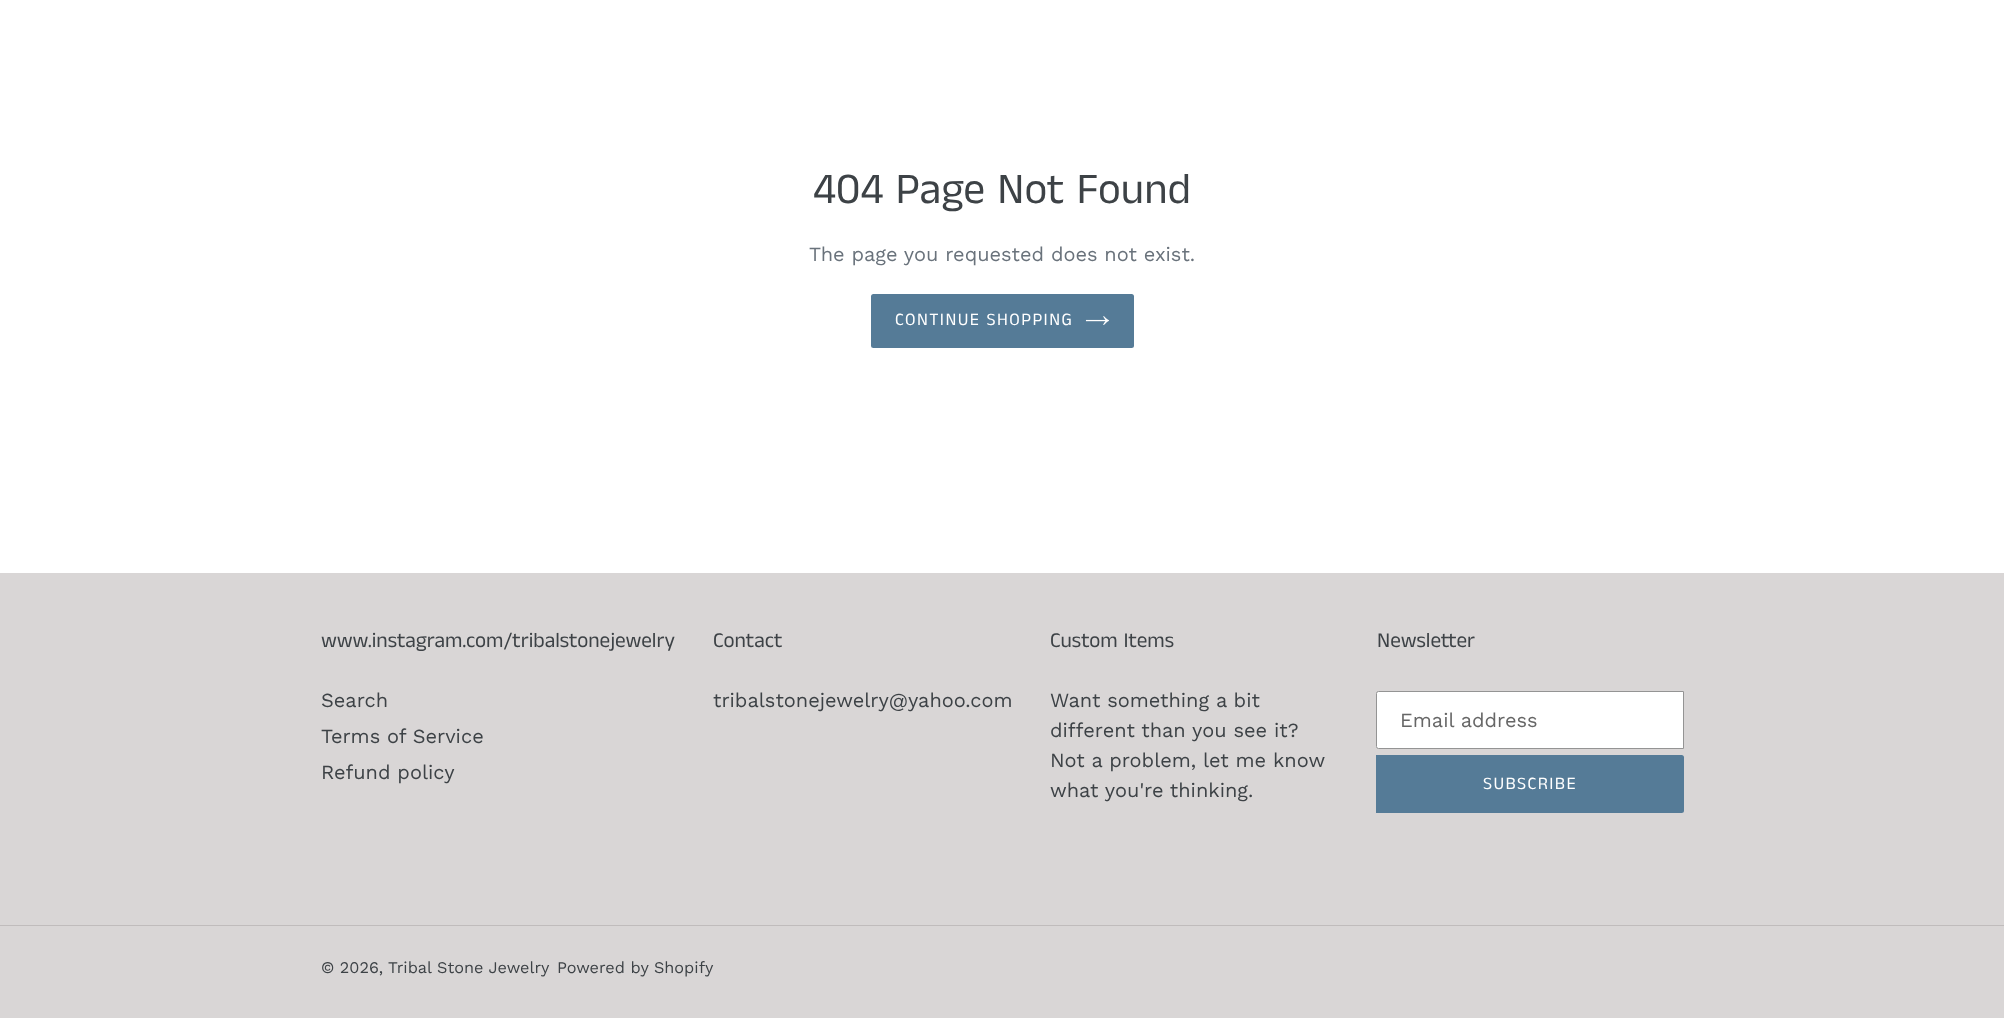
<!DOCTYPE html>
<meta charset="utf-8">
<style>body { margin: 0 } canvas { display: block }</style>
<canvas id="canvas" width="2004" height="1018"></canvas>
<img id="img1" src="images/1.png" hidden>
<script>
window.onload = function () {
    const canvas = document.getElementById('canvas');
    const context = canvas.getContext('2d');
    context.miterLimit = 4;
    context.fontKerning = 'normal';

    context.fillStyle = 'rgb(255, 255, 255)';
    context.fillRect(0, 0, 2004, 1018);
    context.fillStyle = 'rgb(85, 123, 151)';
    context.beginPath();
    context.roundRect(871, 294, 263, 54, 2.5);
    context.fill();
    context.drawImage(document.getElementById('img1'), 1085, 316, 24, 9);
    context.fillStyle = 'rgb(217, 214, 214)';
    context.fillRect(0, 573, 2004, 445);
    context.fillStyle = 'rgb(255, 255, 255)';
    context.beginPath();
    context.roundRect(1376.5, 691.5, 307, 57, [2, 0, 0, 2]);
    context.fill();
    context.strokeStyle = 'rgb(148, 148, 148)';
    context.stroke();
    context.fillStyle = 'rgb(85, 123, 151)';
    context.beginPath();
    context.roundRect(1376, 755, 308, 58, [0, 2.5, 2.5, 0]);
    context.fill();
    context.fillStyle = 'rgb(192, 188, 188)';
    context.fillRect(0, 925, 2004, 1);
    context.font = '43.75px Anek Tamil';
    context.fillStyle = 'rgb(61, 66, 70)';
    context.fillText('404 Page Not Found', 813, 203);
    context.font = '20px Work Sans';
    context.fillStyle = 'rgb(105, 114, 123)';
    context.fillText('The page you requested does not exist.', 809, 261);
    context.letterSpacing = '1.4px';
    context.font = '17.5px Anek Tamil';
    context.fillStyle = 'rgb(255, 255, 255)';
    context.fillText('CONTINUE SHOPPING', 895, 325);
    context.letterSpacing = '0px';
    context.font = '21.25px Anek Tamil';
    context.fillStyle = 'rgb(61, 66, 70)';
    context.fillText('www.instagram.com/tribalstonejewelry', 321, 647);
    context.font = '20px Work Sans';
    context.fillText('Search', 321, 707);
    context.fillText('Terms of Service', 321, 743);
    context.fillText('Refund policy', 321, 779);
    context.font = '21.25px Anek Tamil';
    context.fillText('Contact', 713, 647);
    context.font = '20px Work Sans';
    context.fillText('tribalstonejewelry@yahoo.com', 713, 707);
    context.font = '21.25px Anek Tamil';
    context.fillText('Custom Items', 1050, 647);
    context.font = '20px Work Sans';
    context.fillText('Want something a bit', 1050, 707);
    context.fillText('different than you see it?', 1050, 737);
    context.fillText('Not a problem, let me know', 1050, 767);
    context.fillText('what you\'re thinking.', 1050, 797);
    context.font = '21.25px Anek Tamil';
    context.fillText('Newsletter', 1377, 647);
    context.font = '20px Work Sans';
    context.fillStyle = 'rgb(102, 102, 102)';
    context.fillText('Email address', 1400, 727);
    context.letterSpacing = '1.4px';
    context.font = '17.5px Anek Tamil';
    context.fillStyle = 'rgb(255, 255, 255)';
    context.fillText('SUBSCRIBE', 1483, 789);
    context.letterSpacing = '0px';
    context.font = '16.25px Work Sans';
    context.fillStyle = 'rgb(61, 66, 70)';
    context.fillText('© 2026,', 321, 973);
    context.fillText('Tribal Stone Jewelry', 388, 973);
    context.fillText('Powered by Shopify', 557, 973);
};
</script>
